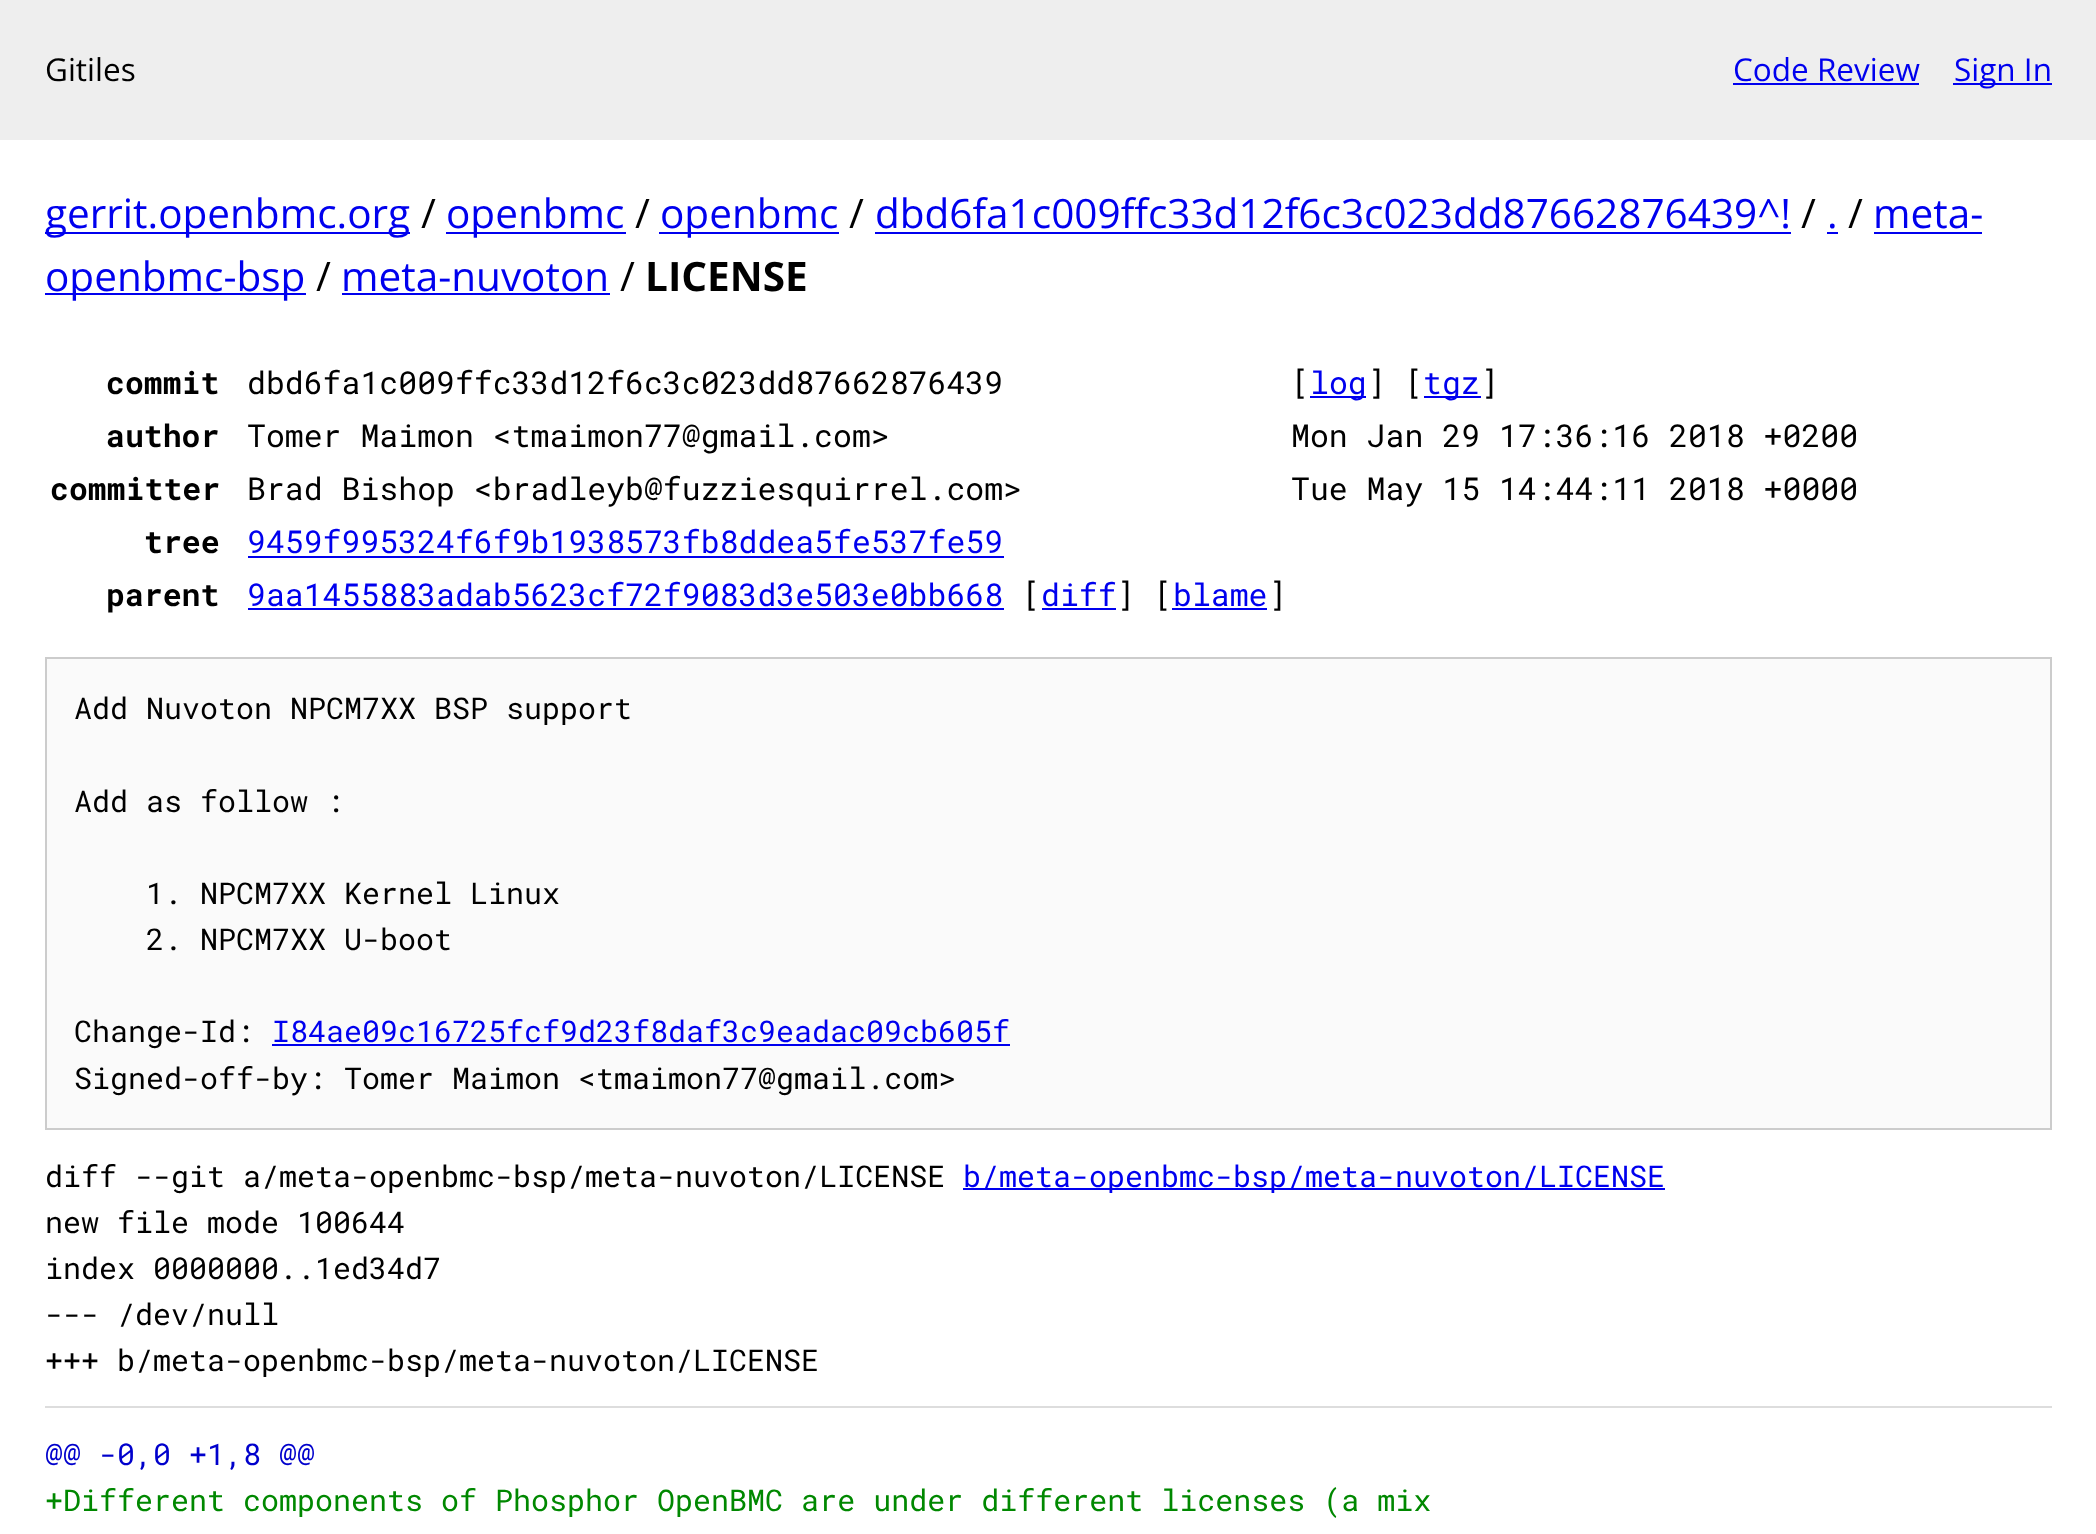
<!DOCTYPE html>
<meta charset="utf-8">
<style>body { margin: 0 } canvas { display: block }</style>
<canvas id="canvas" width="2096" height="1534"></canvas>
<script>
window.onload = function () {
    const canvas = document.getElementById('canvas');
    const context = canvas.getContext('2d');
    context.miterLimit = 4;
    context.fontKerning = 'normal';

    context.fillStyle = 'rgb(255, 255, 255)';
    context.fillRect(0, 0, 2096, 1534);
    context.fillStyle = 'rgb(238, 238, 238)';
    context.fillRect(0, 0, 2096, 140);
    context.fillStyle = 'rgb(0, 0, 238)';
    context.fillRect(1733, 83, 186, 2);
    context.fillRect(1953, 83, 99, 2);
    context.fillRect(45, 232, 365, 2);
    context.fillRect(446, 232, 180, 2);
    context.fillRect(659, 232, 180, 2);
    context.fillRect(875, 232, 916, 2);
    context.fillRect(1827, 232, 11, 2);
    context.fillRect(1874, 232, 108, 2);
    context.fillRect(45, 293, 261, 2);
    context.fillRect(342, 293, 268, 2);
    context.fillRect(1310, 396, 56, 2);
    context.fillRect(1424, 396, 57, 2);
    context.fillRect(248, 556, 756, 2);
    context.fillRect(248, 608, 756, 2);
    context.fillRect(1042, 608, 74, 2);
    context.fillRect(1172, 608, 95, 2);
    context.fillStyle = 'rgb(250, 250, 250)';
    context.beginPath();
    context.rect(46, 658, 2005, 471);
    context.fill();
    context.strokeStyle = 'rgb(204, 204, 204)';
    context.lineWidth = 2;
    context.stroke();
    context.fillStyle = 'rgb(0, 0, 238)';
    context.fillRect(272, 1044, 738, 2);
    context.fillRect(963, 1188, 702, 2);
    context.fillStyle = 'rgb(221, 221, 221)';
    context.fillRect(45, 1406, 2007, 2);
    context.font = '31.5px Open Sans';
    context.fillStyle = 'rgb(0, 0, 0)';
    context.fillText('Gitiles', 45, 81);
    context.fillStyle = 'rgb(0, 0, 238)';
    context.fillText('Code Review', 1733, 81);
    context.fillText('Sign In', 1954, 81);
    context.font = '40.5px Open Sans';
    context.fillText('gerrit.openbmc.org', 45, 228);
    context.fillStyle = 'rgb(0, 0, 0)';
    context.fillText('/', 421, 228);
    context.fillStyle = 'rgb(0, 0, 238)';
    context.fillText('openbmc', 446, 228);
    context.fillStyle = 'rgb(0, 0, 0)';
    context.fillText('/', 635, 228);
    context.fillStyle = 'rgb(0, 0, 238)';
    context.fillText('openbmc', 660, 228);
    context.fillStyle = 'rgb(0, 0, 0)';
    context.fillText('/', 849, 228);
    context.fillStyle = 'rgb(0, 0, 238)';
    context.fillText('dbd6fa1c009ffc33d12f6c3c023dd87662876439^!', 875, 228);
    context.fillStyle = 'rgb(0, 0, 0)';
    context.fillText('/', 1801, 228);
    context.fillStyle = 'rgb(0, 0, 238)';
    context.fillText('.', 1827, 228);
    context.fillStyle = 'rgb(0, 0, 0)';
    context.fillText('/', 1848, 228);
    context.fillStyle = 'rgb(0, 0, 238)';
    context.fillText('meta-', 1873, 228);
    context.fillText('openbmc-bsp', 45, 291);
    context.fillStyle = 'rgb(0, 0, 0)';
    context.fillText('/', 316, 291);
    context.fillStyle = 'rgb(0, 0, 238)';
    context.fillText('meta-nuvoton', 341, 291);
    context.fillStyle = 'rgb(0, 0, 0)';
    context.fillText('/', 620, 291);
    context.font = 'bold 40.5px Open Sans';
    context.fillText('LICENSE', 645, 291);
    context.font = 'bold 31.5px Roboto Mono';
    context.fillText('commit', 106, 394);
    context.font = '31.5px Roboto Mono';
    context.fillText('dbd6fa1c009ffc33d12f6c3c023dd87662876439', 247, 394);
    context.fillText('[', 1291, 394);
    context.fillStyle = 'rgb(0, 0, 238)';
    context.fillText('log', 1310, 394);
    context.fillStyle = 'rgb(0, 0, 0)';
    context.fillText('] [', 1367, 394);
    context.fillStyle = 'rgb(0, 0, 238)';
    context.fillText('tgz', 1423, 394);
    context.fillStyle = 'rgb(0, 0, 0)';
    context.fillText(']', 1480, 394);
    context.font = 'bold 31.5px Roboto Mono';
    context.fillText('author', 106, 447);
    context.font = '31.5px Roboto Mono';
    context.fillText('Tomer Maimon <tmaimon77@gmail.com>', 247, 447);
    context.fillText('Mon Jan 29 17:36:16 2018 +0200', 1291, 447);
    context.font = 'bold 31.5px Roboto Mono';
    context.fillText('committer', 50, 500);
    context.font = '31.5px Roboto Mono';
    context.fillText('Brad Bishop <bradleyb@fuzziesquirrel.com>', 247, 500);
    context.fillText('Tue May 15 14:44:11 2018 +0000', 1291, 500);
    context.font = 'bold 31.5px Roboto Mono';
    context.fillText('tree', 144, 553);
    context.font = '31.5px Roboto Mono';
    context.fillStyle = 'rgb(0, 0, 238)';
    context.fillText('9459f995324f6f9b1938573fb8ddea5fe537fe59', 247, 553);
    context.font = 'bold 31.5px Roboto Mono';
    context.fillStyle = 'rgb(0, 0, 0)';
    context.fillText('parent', 106, 606);
    context.font = '31.5px Roboto Mono';
    context.fillStyle = 'rgb(0, 0, 238)';
    context.fillText('9aa1455883adab5623cf72f9083d3e503e0bb668', 247, 606);
    context.fillStyle = 'rgb(0, 0, 0)';
    context.fillText('[', 1022, 606);
    context.fillStyle = 'rgb(0, 0, 238)';
    context.fillText('diff', 1041, 606);
    context.fillStyle = 'rgb(0, 0, 0)';
    context.fillText('] [', 1116, 606);
    context.fillStyle = 'rgb(0, 0, 238)';
    context.fillText('blame', 1173, 606);
    context.fillStyle = 'rgb(0, 0, 0)';
    context.fillText(']', 1268, 606);
    context.font = '30px Roboto Mono';
    context.fillText('Add Nuvoton NPCM7XX BSP support', 74, 719);
    context.fillText('Add as follow :', 74, 812);
    context.fillText('1. NPCM7XX Kernel Linux', 146, 904);
    context.fillText('2. NPCM7XX U-boot', 146, 950);
    context.fillText('Change-Id:', 74, 1042);
    context.fillStyle = 'rgb(0, 0, 238)';
    context.fillText('I84ae09c16725fcf9d23f8daf3c9eadac09cb605f', 272, 1042);
    context.fillStyle = 'rgb(0, 0, 0)';
    context.fillText('Signed-off-by: Tomer Maimon <tmaimon77@gmail.com>', 74, 1089);
    context.fillText('diff --git a/meta-openbmc-bsp/meta-nuvoton/LICENSE', 45, 1187);
    context.fillStyle = 'rgb(0, 0, 238)';
    context.fillText('b/meta-openbmc-bsp/meta-nuvoton/LICENSE', 963, 1187);
    context.fillStyle = 'rgb(0, 0, 0)';
    context.fillText('new file mode 100644', 45, 1233);
    context.fillText('index 0000000..1ed34d7', 45, 1279);
    context.fillText('--- /dev/null', 45, 1325);
    context.fillText('+++ b/meta-openbmc-bsp/meta-nuvoton/LICENSE', 45, 1371);
    context.fillStyle = 'rgb(0, 0, 204)';
    context.fillText('@@ -0,0 +1,8 @@', 45, 1465);
    context.fillStyle = 'rgb(0, 136, 0)';
    context.fillText('+Different components of Phosphor OpenBMC are under different licenses (a mix', 45, 1511);
};
</script>
